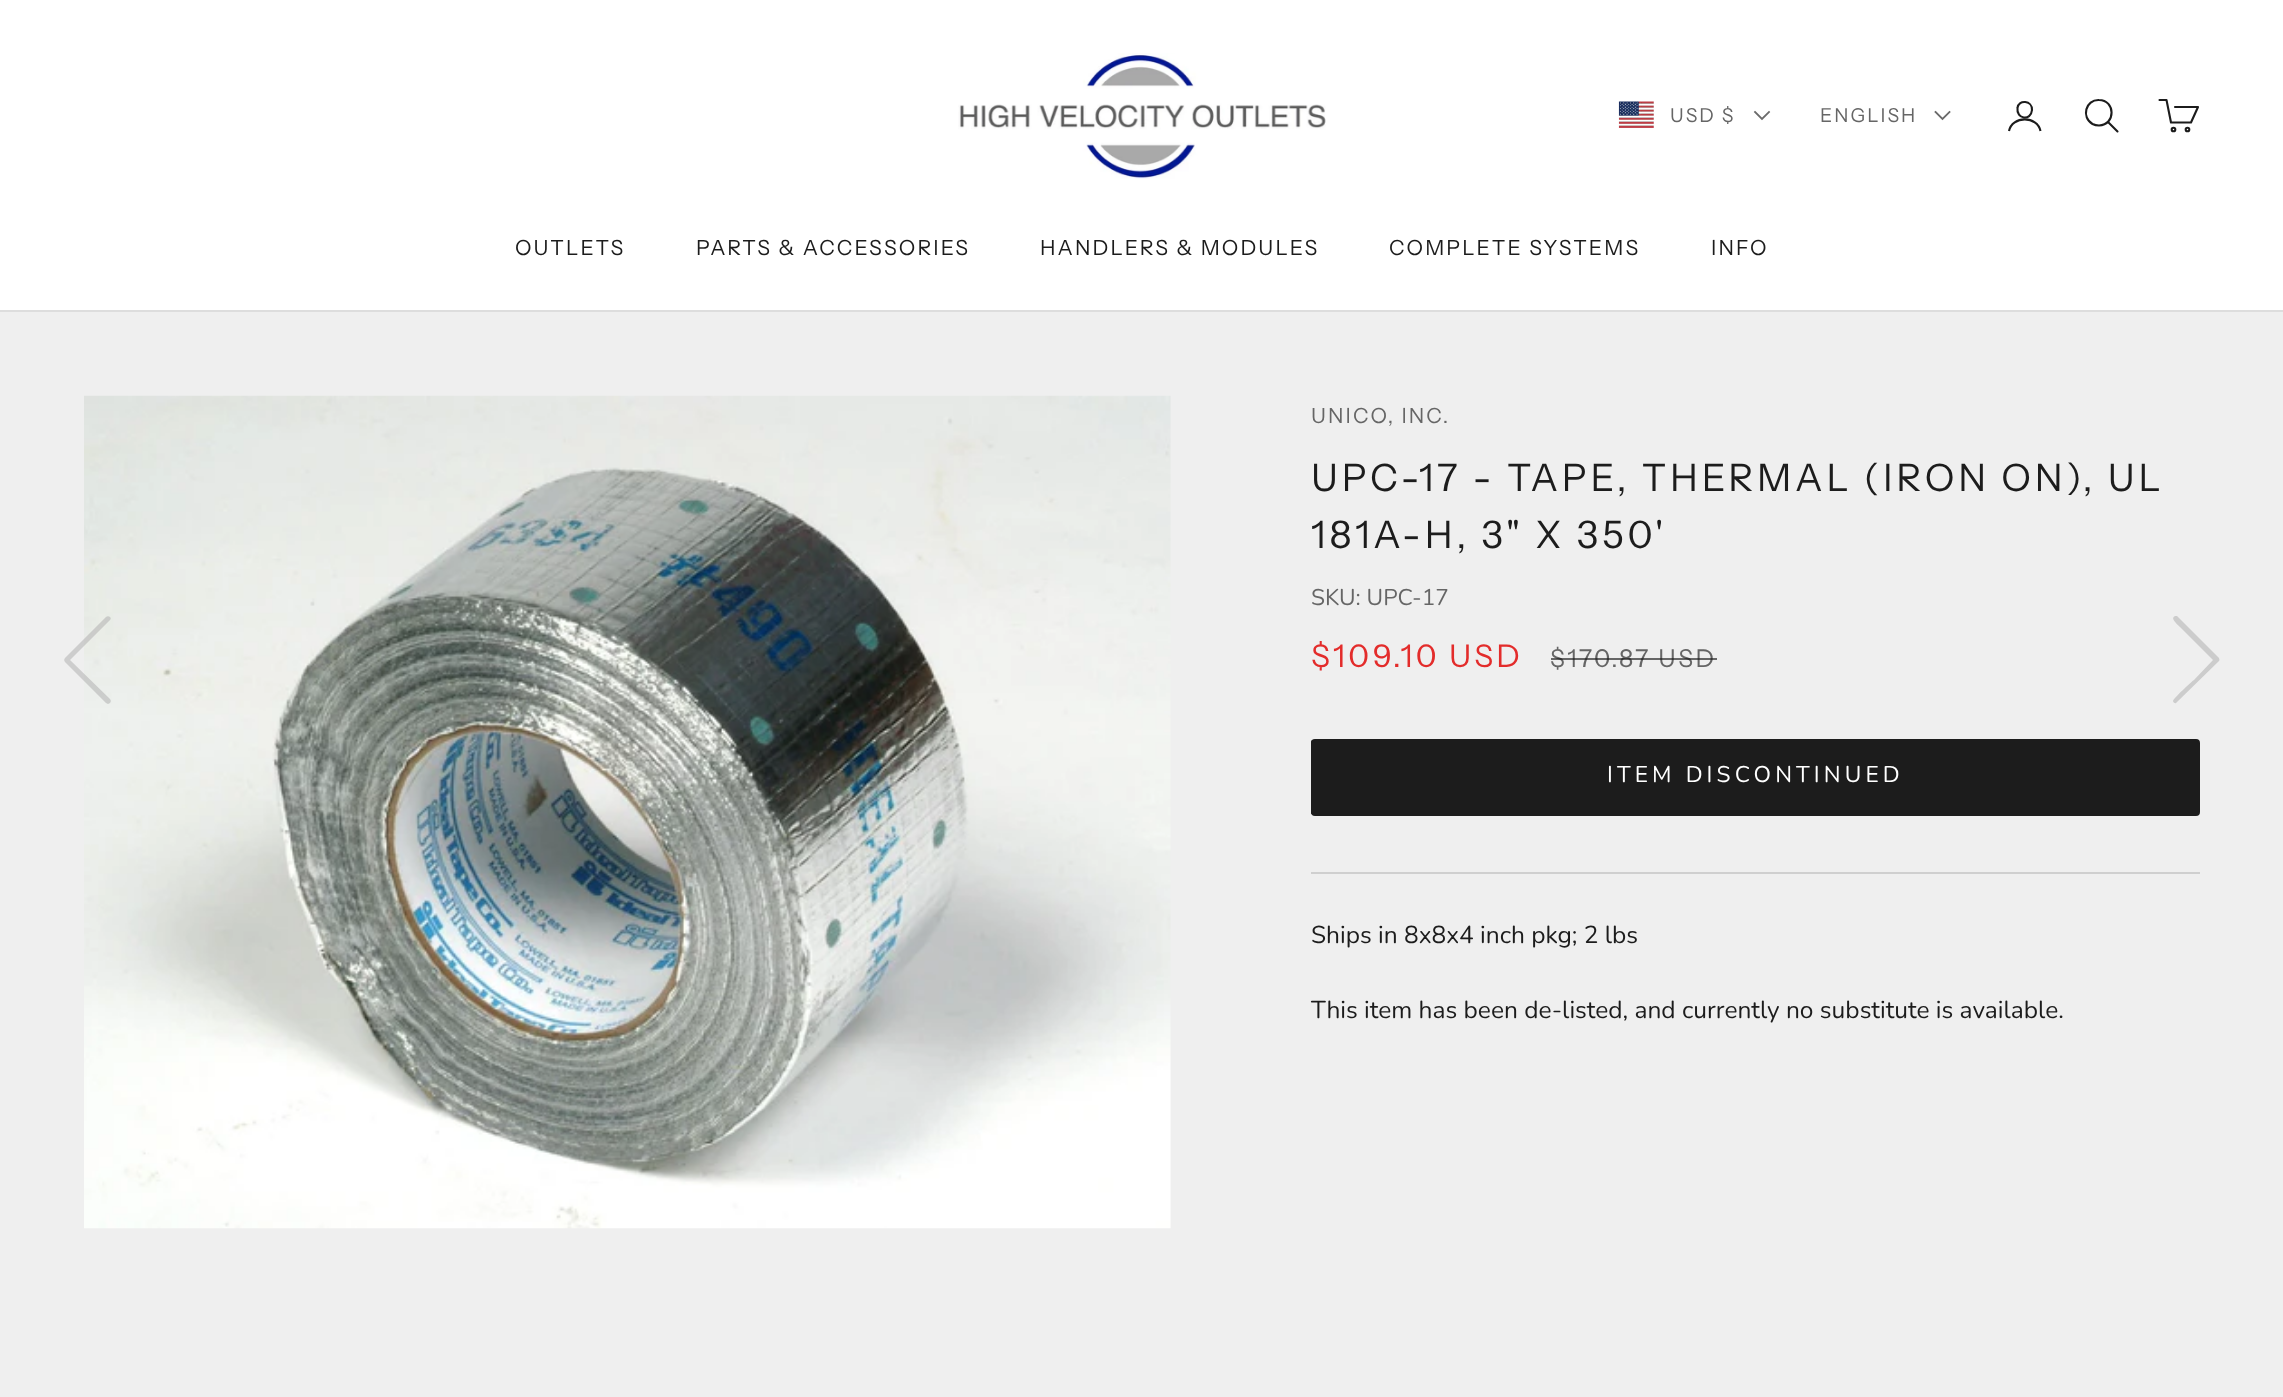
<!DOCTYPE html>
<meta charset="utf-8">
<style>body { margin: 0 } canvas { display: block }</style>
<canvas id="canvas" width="2283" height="1397"></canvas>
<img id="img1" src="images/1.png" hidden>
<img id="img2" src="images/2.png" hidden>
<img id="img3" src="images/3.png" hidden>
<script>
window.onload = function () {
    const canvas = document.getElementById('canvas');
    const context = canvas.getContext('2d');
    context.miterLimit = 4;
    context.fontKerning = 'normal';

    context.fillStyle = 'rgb(239, 239, 239)';
    context.fillRect(0, 0, 2283, 1397);
    context.fillStyle = 'rgb(255, 255, 255)';
    context.fillRect(0, 0, 2283, 310);
    context.fillStyle = 'rgb(221, 221, 221)';
    context.fillRect(0, 310, 2283, 2);
    context.drawImage(document.getElementById('img1'), 958, 53, 368, 126);
    context.drawImage(document.getElementById('img2'), 1618, 101, 36, 27);
    context.beginPath();
    context.moveTo(1755, 112);
    context.lineTo(1762, 119);
    context.lineTo(1769, 112);
    context.strokeStyle = 'rgb(107, 107, 107)';
    context.lineWidth = 1.8;
    context.lineCap = 'square';
    context.stroke();
    context.beginPath();
    context.moveTo(1935.5, 112);
    context.lineTo(1942.5, 119);
    context.lineTo(1949.5, 112);
    context.stroke();
    context.beginPath();
    context.moveTo(2032, 110);
    context.bezierCurveTo(2031, 121.5, 2016, 119, 2017.5, 108);
    context.bezierCurveTo(2018.5, 99, 2032.5, 100.5, 2032, 110);
    context.closePath();
    context.strokeStyle = 'rgb(28, 28, 28)';
    context.lineWidth = 2.1;
    context.lineCap = 'round';
    context.lineJoin = 'round';
    context.stroke();
    context.beginPath();
    context.moveTo(2009, 131);
    context.bezierCurveTo(2012, 115.5, 2037.5, 115.5, 2040.5, 131);
    context.lineCap = 'butt';
    context.lineJoin = 'miter';
    context.stroke();
    context.beginPath();
    context.moveTo(2099, 100);
    context.bezierCurveTo(2085.5, 99.5, 2081, 117.5, 2092.5, 124);
    context.bezierCurveTo(2094.5, 125, 2096.5, 125.5, 2099, 125.5);
    context.bezierCurveTo(2116, 125, 2115.5, 100, 2099, 100);
    context.closePath();
    context.stroke();
    context.beginPath();
    context.moveTo(2108.5, 122.5);
    context.lineTo(2117.5, 131.5);
    context.lineCap = 'round';
    context.stroke();
    context.beginPath();
    context.moveTo(2175, 107);
    context.lineTo(2198, 107);
    context.lineTo(2191, 122.5);
    context.lineTo(2171, 122.5);
    context.lineTo(2166.5, 100);
    context.lineTo(2159.5, 100);
    context.lineJoin = 'round';
    context.stroke();
    context.beginPath();
    context.arc(2173.5, 129.5, 1.8, 0, 2 * Math.PI);
    context.stroke();
    context.beginPath();
    context.arc(2187.5, 129.5, 1.8, 0, 2 * Math.PI);
    context.stroke();
    context.drawImage(document.getElementById('img3'), 84, 395, 1087, 834);
    context.save();
    context.beginPath();
    context.roundRect(1311, 739, 889, 77, 4);
    context.clip();
    context.fillStyle = 'rgb(28, 28, 28)';
    context.fillRect(1311, 740, 887, 74);
    context.restore();
    context.beginPath();
    context.roundRect(1312, 740, 887, 75, 3);
    context.lineWidth = 2;
    context.lineJoin = 'miter';
    context.stroke();
    context.fillStyle = 'rgb(207, 207, 207)';
    context.fillRect(1311, 872, 889, 2);
    context.fillStyle = 'rgba(181, 181, 181, 0.6)';
    context.beginPath();
    context.moveTo(70, 660);
    context.lineTo(110, 620);
    context.bezierCurveTo(111, 619, 111, 618, 110, 617);
    context.bezierCurveTo(109, 616, 107, 616, 106, 617);
    context.lineTo(65, 658);
    context.bezierCurveTo(64, 659, 64, 661, 65, 662);
    context.lineTo(106, 703);
    context.lineTo(108, 704);
    context.lineTo(110, 703);
    context.bezierCurveTo(111, 702, 111, 700, 110, 699);
    context.closePath();
    context.fill();
    context.fillStyle = 'rgb(204, 204, 204)';
    context.beginPath();
    context.moveTo(2219, 658);
    context.lineTo(2177, 616);
    context.lineTo(2175, 616);
    context.bezierCurveTo(2170, 618, 2176, 623, 2180, 627);
    context.lineTo(2213, 660);
    context.lineTo(2194, 680);
    context.bezierCurveTo(2191, 682, 2174, 698, 2173, 701);
    context.bezierCurveTo(2173, 702, 2175, 704, 2176, 703);
    context.lineTo(2219, 661);
    context.bezierCurveTo(2220, 660, 2219, 659, 2219, 658);
    context.closePath();
    context.fill();
    context.letterSpacing = '2px';
    context.font = '19.25px Instrument Sans';
    context.fillStyle = 'rgb(102, 102, 102)';
    context.fillText('USD $', 1670, 122);
    context.fillText('ENGLISH', 1820, 122);
    context.letterSpacing = '2.1px';
    context.font = '21px Instrument Sans';
    context.fillStyle = 'rgb(28, 28, 28)';
    context.fillText('OUTLETS', 515, 255);
    context.fillText('PARTS & ACCESSORIES', 696, 255);
    context.fillText('HANDLERS & MODULES', 1040, 255);
    context.fillText('COMPLETE SYSTEMS', 1389, 255);
    context.fillText('INFO', 1711, 255);
    context.fillStyle = 'rgb(102, 102, 102)';
    context.fillText('UNICO, INC.', 1311, 423);
    context.letterSpacing = '3.8px';
    context.font = '37.85px Instrument Sans';
    context.fillStyle = 'rgb(28, 28, 28)';
    context.fillText('UPC-17 - TAPE, THERMAL (IRON ON), UL', 1311, 491);
    context.fillText('181A-H, 3" X 350\'', 1311, 548);
    context.letterSpacing = '0px';
    context.font = '22.75px Nunito';
    context.fillStyle = 'rgb(102, 102, 102)';
    context.fillText('SKU: UPC-17', 1311, 605);
    context.letterSpacing = '3.1px';
    context.font = '31.25px Instrument Sans';
    context.fillStyle = 'rgb(227, 44, 43)';
    context.fillText('$109.10 USD', 1311, 667);
    context.letterSpacing = '2.5px';
    context.font = '24.5px Instrument Sans';
    context.fillStyle = 'rgb(102, 102, 102)';
    context.fillText('$170.87 USD', 1550, 667);
    context.fillStyle = 'rgba(28, 28, 28, 0.65)';
    context.fillRect(1551, 658, 166, 2);
    context.letterSpacing = '4.1px';
    context.font = '22.75px Nunito';
    context.fillStyle = 'rgb(255, 255, 255)';
    context.fillText('ITEM DISCONTINUED', 1607, 782);
    context.letterSpacing = '0px';
    context.font = '24.5px Nunito';
    context.fillStyle = 'rgb(28, 28, 28)';
    context.fillText('Ships in 8x8x4 inch pkg; 2 lbs', 1311, 943);
    context.fillText('This item has been de-listed, and currently no substitute is available.', 1311, 1018);
};
</script>
